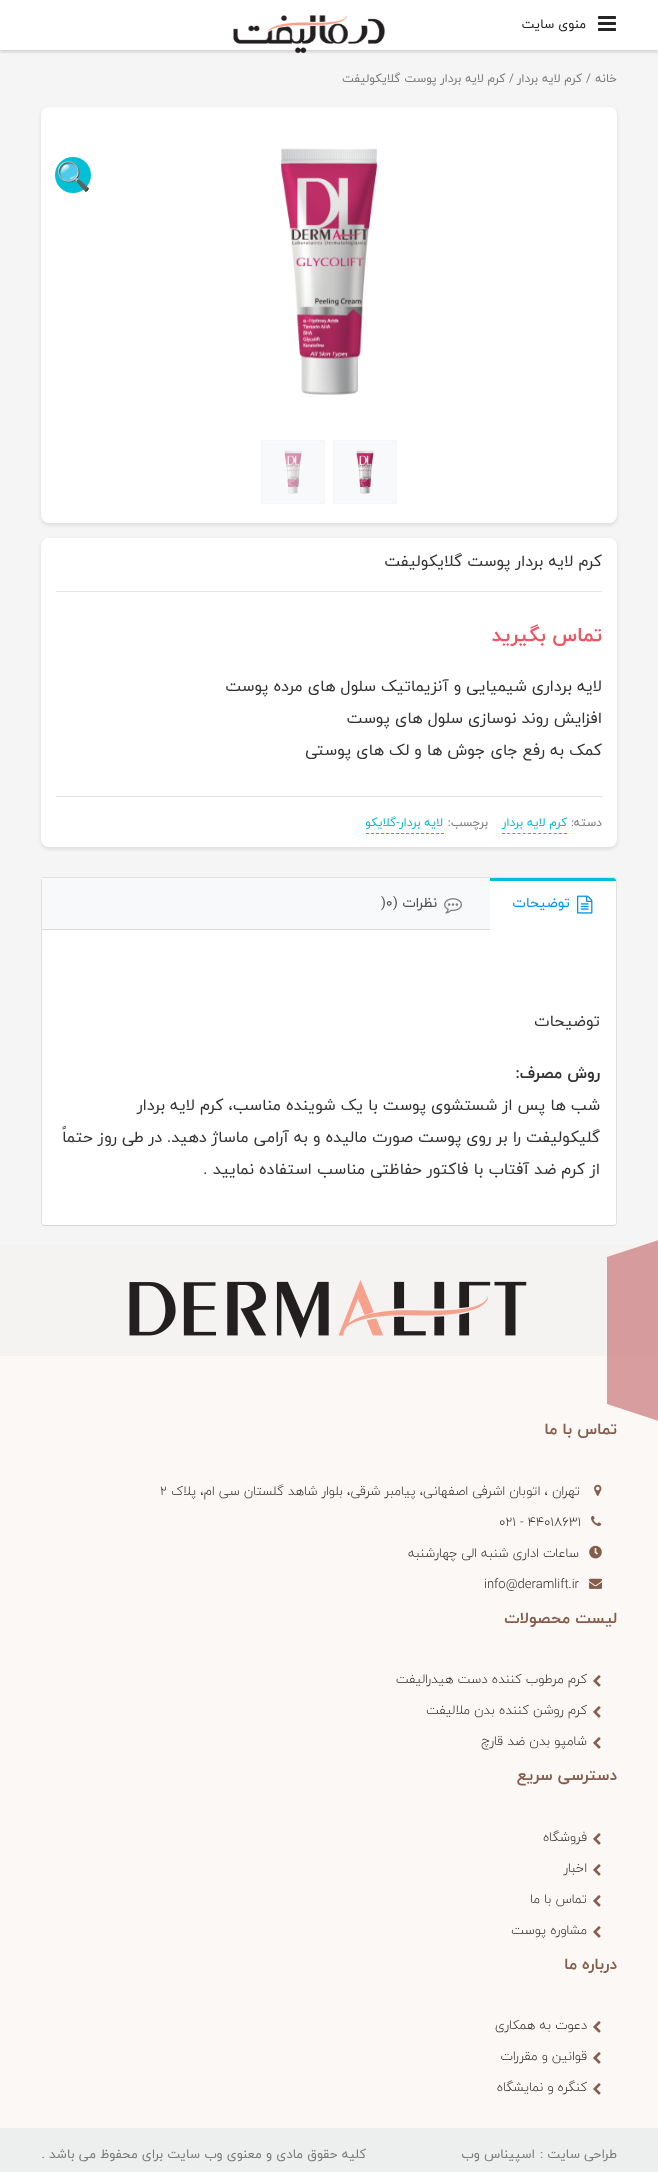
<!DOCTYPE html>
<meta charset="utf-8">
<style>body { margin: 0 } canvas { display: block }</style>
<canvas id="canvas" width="658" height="2172"></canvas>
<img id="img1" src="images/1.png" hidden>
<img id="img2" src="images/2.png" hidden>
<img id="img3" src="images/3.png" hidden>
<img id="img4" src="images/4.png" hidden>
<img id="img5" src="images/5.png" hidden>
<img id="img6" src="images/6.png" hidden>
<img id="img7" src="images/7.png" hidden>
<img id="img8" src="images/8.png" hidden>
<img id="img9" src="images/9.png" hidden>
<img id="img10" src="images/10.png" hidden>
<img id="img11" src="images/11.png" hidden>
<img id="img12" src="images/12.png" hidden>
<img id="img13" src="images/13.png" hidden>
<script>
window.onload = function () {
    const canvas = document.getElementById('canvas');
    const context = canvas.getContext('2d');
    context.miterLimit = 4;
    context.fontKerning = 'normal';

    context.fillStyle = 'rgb(245, 245, 245)';
    context.fillRect(0, 0, 658, 2172);
    context.fillStyle = 'rgba(0, 0, 0, 0.15)';
    context.filter = 'blur(1.5px)';
    context.beginPath();
    context.rect(0, 2, 658, 50);
    context.fill();
    context.filter = 'none';
    context.fillStyle = 'rgb(255, 255, 255)';
    context.fillRect(0, 0, 658, 50);
    context.drawImage(document.getElementById('img1'), 598, 16, 18, 15);
    context.drawImage(document.getElementById('img2'), 233, 15, 153, 38);
    context.fillStyle = 'rgba(0, 0, 0, 0.1)';
    context.filter = 'blur(2px)';
    context.beginPath();
    context.roundRect(41, 109, 576, 416, 8);
    context.fill();
    context.filter = 'none';
    context.fillStyle = 'rgb(255, 255, 255)';
    context.beginPath();
    context.roundRect(41, 107, 576, 416, 8);
    context.fill();
    context.drawImage(document.getElementById('img3'), 280, 148, 98, 247);
    context.fillStyle = 'rgb(1, 191, 214)';
    context.beginPath();
    context.arc(73, 175, 18, 0, 2 * Math.PI);
    context.fill();
    context.fillStyle = 'rgb(248, 249, 250)';
    context.beginPath();
    context.rect(333.5, 440.5, 63, 63);
    context.fill();
    context.strokeStyle = 'rgb(245, 245, 245)';
    context.stroke();
    context.drawImage(document.getElementById('img4'), 356, 450, 18, 44);
    context.beginPath();
    context.rect(261.5, 440.5, 63, 63);
    context.fill();
    context.stroke();
    context.drawImage(document.getElementById('img5'), 284, 450, 18, 44);
    context.fillStyle = 'rgba(0, 0, 0, 0.1)';
    context.filter = 'blur(2px)';
    context.beginPath();
    context.roundRect(41, 540, 576, 309, 8);
    context.fill();
    context.filter = 'none';
    context.fillStyle = 'rgb(255, 255, 255)';
    context.beginPath();
    context.roundRect(41, 538, 576, 309, 8);
    context.fill();
    context.fillStyle = 'rgb(230, 230, 230)';
    context.fillRect(56, 591, 546, 1);
    context.fillStyle = 'rgb(224, 225, 226)';
    context.fillRect(56, 796, 546, 1);
    context.beginPath();
    context.moveTo(502, 833.5);
    context.lineTo(567, 833.5);
    context.strokeStyle = 'rgb(0, 191, 214)';
    context.setLineDash([3, 2.17]);
    context.stroke();
    context.beginPath();
    context.moveTo(366, 833.5);
    context.lineTo(444, 833.5);
    context.setLineDash([3, 2]);
    context.stroke();
    context.fillStyle = 'rgb(255, 255, 255)';
    context.beginPath();
    context.roundRect(41.5, 877.5, 575, 348, 2.5);
    context.fill();
    context.strokeStyle = 'rgb(224, 225, 226)';
    context.setLineDash([]);
    context.stroke();
    context.fillStyle = 'rgb(248, 249, 250)';
    context.beginPath();
    context.roundRect(42, 878, 574, 52, [0, 3, 0, 0]);
    context.fill();
    context.fillStyle = 'rgb(255, 255, 255)';
    context.beginPath();
    context.roundRect(490, 878, 126, 52, [0, 3, 0, 0]);
    context.fill();
    context.fillStyle = 'rgb(0, 191, 214)';
    context.beginPath();
    context.roundRect(490, 878, 126, 3, [0, 3, 0, 0]);
    context.fill();
    context.drawImage(document.getElementById('img6'), 577, 895, 16, 19);
    context.drawImage(document.getElementById('img7'), 444, 898, 18, 16);
    context.fillStyle = 'rgb(218, 218, 218)';
    context.fillRect(42, 929, 448, 1);
    context.fillStyle = 'rgba(0, 0, 0, 0.05)';
    context.filter = 'blur(0.5px)';
    context.beginPath();
    context.roundRect(42, 954, 574, 272, 4);
    context.fill();
    context.filter = 'none';
    context.fillStyle = 'rgb(255, 255, 255)';
    context.beginPath();
    context.roundRect(42, 953, 574, 272, 4);
    context.fill();
    context.fillStyle = 'rgb(244, 243, 242)';
    context.fillRect(0, 1246, 658, 110);
    context.fillStyle = 'rgb(252, 248, 246)';
    context.fillRect(0, 1356, 658, 772);
    context.fillStyle = 'rgba(206, 132, 135, 0.79)';
    context.beginPath();
    context.moveTo(607, 1404);
    context.lineTo(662, 1422);
    context.lineTo(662, 1239);
    context.lineTo(607, 1257);
    context.closePath();
    context.fill();
    context.drawImage(document.getElementById('img8'), 129, 1280, 398, 59);
    context.drawImage(document.getElementById('img9'), 594, 1484, 8, 12);
    context.drawImage(document.getElementById('img10'), 591, 1515, 11, 11);
    context.drawImage(document.getElementById('img11'), 589, 1545, 13, 14);
    context.drawImage(document.getElementById('img12'), 589, 1578, 13, 11);
    context.drawImage(document.getElementById('img13'), 593, 1675, 8, 12);
    context.drawImage(document.getElementById('img13'), 593, 1706, 8, 12);
    context.drawImage(document.getElementById('img13'), 593, 1737, 8, 12);
    context.drawImage(document.getElementById('img13'), 593, 1833, 8, 12);
    context.drawImage(document.getElementById('img13'), 593, 1864, 8, 12);
    context.drawImage(document.getElementById('img13'), 593, 1895, 8, 12);
    context.drawImage(document.getElementById('img13'), 593, 1926, 8, 12);
    context.drawImage(document.getElementById('img13'), 593, 2021, 8, 12);
    context.drawImage(document.getElementById('img13'), 593, 2052, 8, 12);
    context.drawImage(document.getElementById('img13'), 593, 2083, 8, 12);
    context.fillStyle = 'rgb(237, 239, 238)';
    context.fillRect(0, 2128, 658, 44);
    context.direction = 'rtl';
    context.font = '13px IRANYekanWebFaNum';
    context.fillStyle = 'rgb(36, 36, 36)';
    context.fillText('منوی سایت', 586, 28);
    context.font = '12px IRANYekanWebFaNum';
    context.fillStyle = 'rgb(123, 123, 123)';
    context.fillText('خانه', 617, 82);
    context.direction = 'ltr';
    context.fillText('/', 586, 82);
    context.direction = 'rtl';
    context.fillText('کرم لایه بردار', 582, 82);
    context.fillText('/ کرم لایه بردار پوست گلایکولیفت', 514, 82);
    context.direction = 'ltr';
    context.font = '28px Noto Color Emoji';
    context.fillStyle = 'rgb(255, 255, 255)';
    context.fillText('🔍', 56, 186);
    context.direction = 'rtl';
    context.font = '16px IRANYekanWebFaNum';
    context.fillStyle = 'rgb(51, 51, 51)';
    context.fillText('کرم لایه بردار پوست گلایکولیفت', 602, 566);
    context.font = 'bold 20px IRANYekanWebFaNum';
    context.fillStyle = 'rgb(239, 86, 97)';
    context.fillText('تماس بگیرید', 602, 641);
    context.font = '16px IRANYekanWebFaNum';
    context.fillStyle = 'rgb(51, 51, 51)';
    context.fillText('لایه برداری شیمیایی و آنزیماتیک سلول های مرده پوست', 602, 691);
    context.fillText('افزایش روند نوسازی سلول های پوست', 602, 723);
    context.fillText('کمک به رفع جای جوش ها و لک های پوستی', 602, 755);
    context.font = '12px IRANYekanWebFaNum';
    context.fillStyle = 'rgb(123, 123, 123)';
    context.fillText('دسته:', 602, 826);
    context.fillStyle = 'rgb(0, 191, 214)';
    context.fillText('کرم لایه بردار', 567, 826);
    context.fillStyle = 'rgb(123, 123, 123)';
    context.fillText('برچسب:', 488, 826);
    context.fillStyle = 'rgb(0, 191, 214)';
    context.fillText('لایه بردار-گلایکو', 443, 826);
    context.font = '14px IRANYekanWebFaNum';
    context.fillStyle = 'rgb(0, 151, 230)';
    context.fillText('توضیحات', 570, 907);
    context.fillStyle = 'rgb(81, 81, 81)';
    context.fillText('نظرات (', 437, 907);
    context.direction = 'ltr';
    context.fillText(')0', 381, 907);
    context.direction = 'rtl';
    context.font = '16px IRANYekanWebFaNum';
    context.fillStyle = 'rgb(51, 51, 51)';
    context.fillText('توضیحات', 600, 1026);
    context.font = 'bold 16px IRANYekanWebFaNum';
    context.fillText('روش مصرف:', 600, 1078);
    context.font = '16px IRANYekanWebFaNum';
    context.fillText('شب ها پس از شستشوی پوست با یک شوینده مناسب، کرم', 600, 1110);
    context.fillText('لایه بردار', 195, 1110);
    context.fillText('گلیکولیفت را بر روی پوست صورت مالیده و به آرامی ماساژ دهید. در طی روز حتماً', 600, 1142);
    context.fillText('از کرم ضد آفتاب با فاکتور حفاظتی مناسب استفاده نمایید .', 600, 1174);
    context.font = '20px IRANYekanWebFaNum';
    context.fillStyle = 'rgb(255, 255, 255)';
    context.save();
    context.translate(754, 1387);
    context.rotate(-90 * Math.PI / 180);
    context.fillText('مشاوره آنلاین', 0, 0);
    context.restore();
    context.font = 'bold 16px IRANYekanWebFaNum';
    context.fillStyle = 'rgb(134, 93, 76)';
    context.fillText('تماس با ما', 617, 1434);
    context.font = '300 13px IRANYekanWebFaNum';
    context.fillStyle = 'rgb(42, 42, 42)';
    context.fillText('تهران ، اتوبان اشرفی اصفهانی، پیامبر شرقی، بلوار شاهد گلستان سی ام، پلاک', 580, 1495);
    context.direction = 'ltr';
    context.fillText('2', 160, 1495);
    context.fillText('021 - 44018631', 499, 1526);
    context.direction = 'rtl';
    context.fillText('ساعات اداری شنبه الی چهارشنبه', 579, 1557);
    context.direction = 'ltr';
    context.fillText('info@deramlift.ir', 484, 1588);
    context.direction = 'rtl';
    context.font = 'bold 16px IRANYekanWebFaNum';
    context.fillStyle = 'rgb(134, 93, 76)';
    context.fillText('لیست محصولات', 617, 1623);
    context.font = '300 13px IRANYekanWebFaNum';
    context.fillStyle = 'rgb(42, 42, 42)';
    context.fillText('کرم مرطوب کننده دست هیدرالیفت', 587, 1683);
    context.fillText('کرم روشن کننده بدن ملالیفت', 587, 1714);
    context.fillText('شامپو بدن ضد قارچ', 587, 1745);
    context.font = 'bold 16px IRANYekanWebFaNum';
    context.fillStyle = 'rgb(134, 93, 76)';
    context.fillText('دسترسی سریع', 617, 1780);
    context.font = '300 13px IRANYekanWebFaNum';
    context.fillStyle = 'rgb(42, 42, 42)';
    context.fillText('فروشگاه', 587, 1841);
    context.fillText('اخبار', 587, 1872);
    context.fillText('تماس با ما', 587, 1903);
    context.fillText('مشاوره پوست', 587, 1934);
    context.font = 'bold 16px IRANYekanWebFaNum';
    context.fillStyle = 'rgb(134, 93, 76)';
    context.fillText('درباره ما', 617, 1969);
    context.font = '300 13px IRANYekanWebFaNum';
    context.fillStyle = 'rgb(42, 42, 42)';
    context.fillText('دعوت به همکاری', 587, 2029);
    context.fillText('قوانین و مقررات', 587, 2060);
    context.fillText('کنگره و نمایشگاه', 587, 2091);
    context.font = '13px IRANYekanWebFaNum';
    context.fillStyle = 'rgb(123, 123, 123)';
    context.fillText('طراحی سایت', 617, 2158);
    context.direction = 'ltr';
    context.fillText(':', 540, 2158);
    context.direction = 'rtl';
    context.fillText('اسپیناس وب', 535, 2158);
    context.fillText('کلیه حقوق مادی و معنوی وب‌ سایت برای محفوظ می‌ باشد .', 366, 2158);
};
</script>
